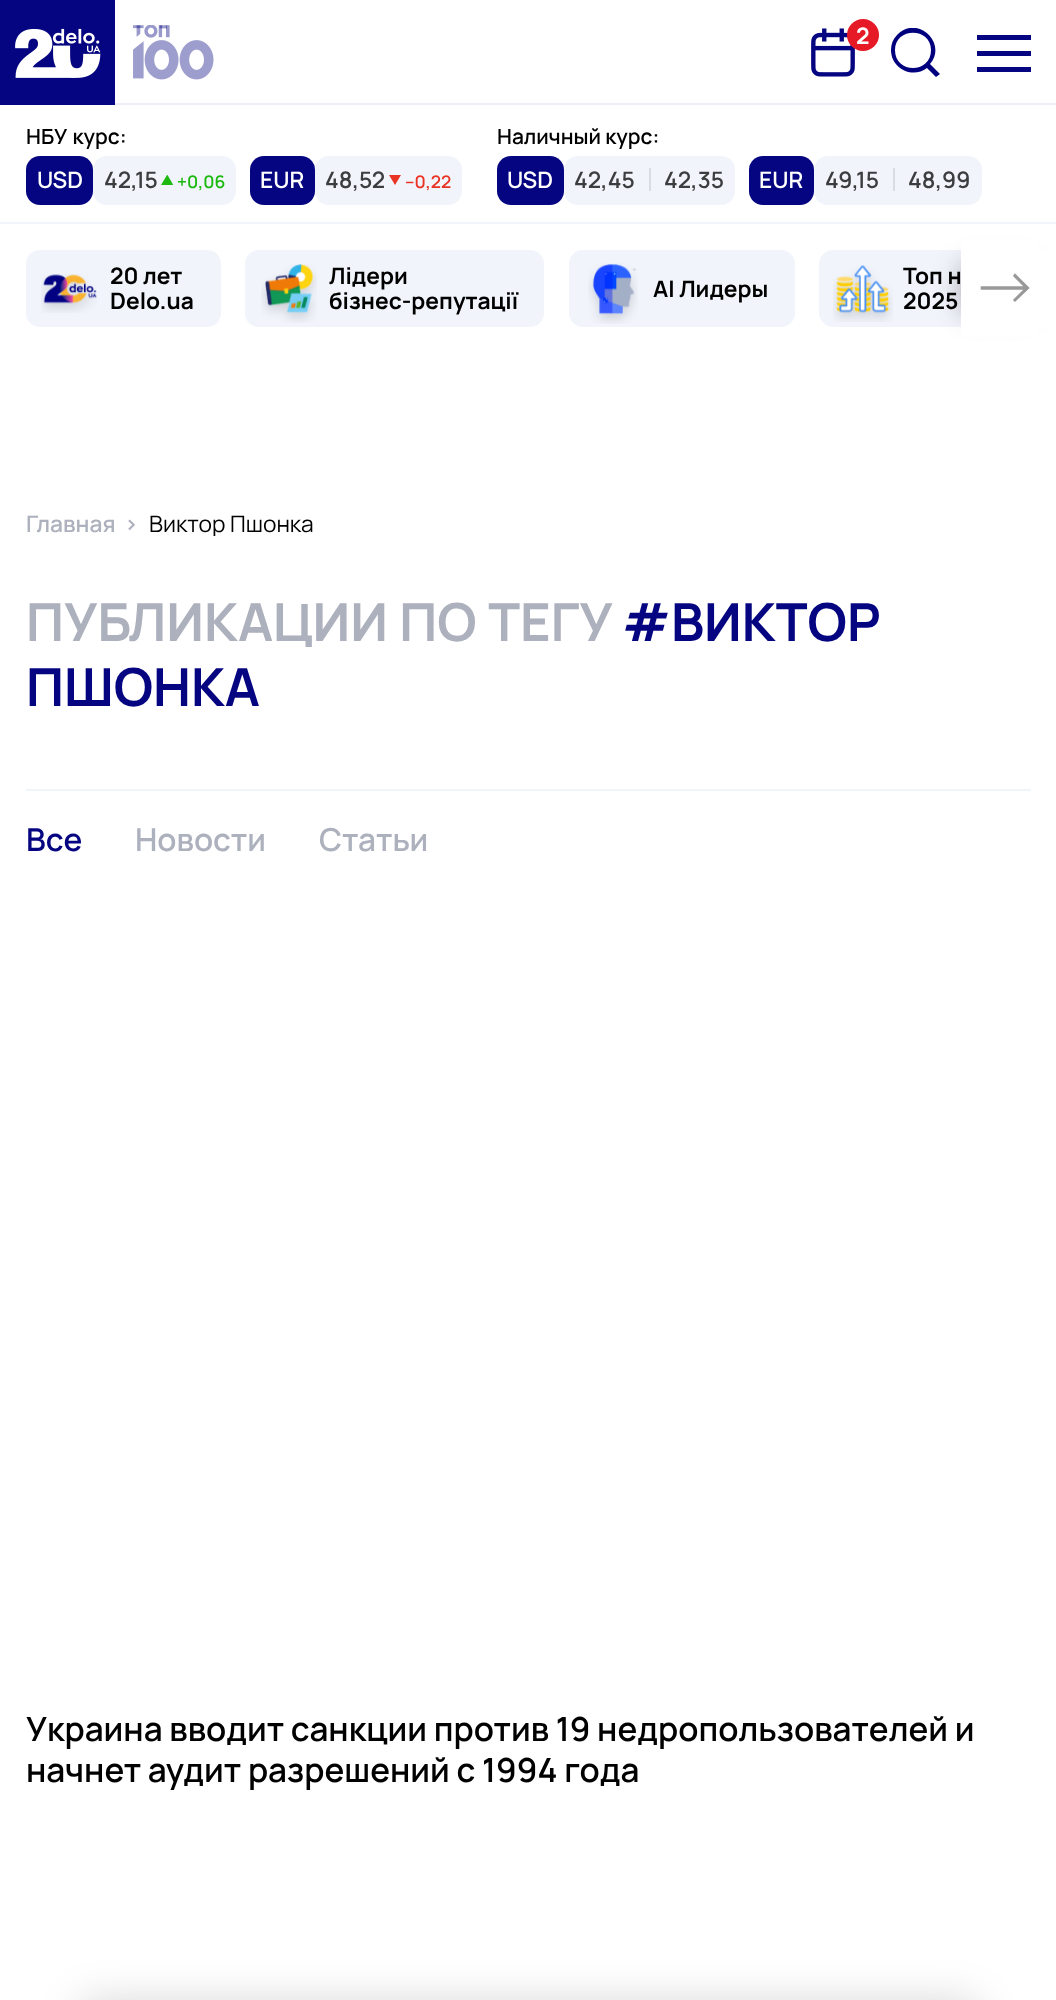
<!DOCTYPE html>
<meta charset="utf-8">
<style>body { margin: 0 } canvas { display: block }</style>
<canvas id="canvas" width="1056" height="2000"></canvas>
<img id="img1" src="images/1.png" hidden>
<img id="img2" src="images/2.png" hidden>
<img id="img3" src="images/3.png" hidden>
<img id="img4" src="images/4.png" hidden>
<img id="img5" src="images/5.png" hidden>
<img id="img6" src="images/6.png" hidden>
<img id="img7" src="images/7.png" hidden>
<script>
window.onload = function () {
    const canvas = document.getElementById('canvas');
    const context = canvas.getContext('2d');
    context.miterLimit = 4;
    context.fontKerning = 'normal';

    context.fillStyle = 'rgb(255, 255, 255)';
    context.fillRect(0, 0, 1056, 2000);
    context.drawImage(document.getElementById('img1'), 0, 0, 115, 105);
    context.drawImage(document.getElementById('img2'), 133, 25, 81, 55);
    context.drawImage(document.getElementById('img3'), 811, 28, 44, 49);
    context.fillStyle = 'rgb(230, 26, 39)';
    context.beginPath();
    context.arc(863, 35, 16, 0, 2 * Math.PI);
    context.fill();
    context.save();
    context.beginPath();
    context.rect(891, 28, 49, 49);
    context.clip();
    context.fillStyle = 'rgb(0, 0, 127)';
    context.beginPath();
    context.moveTo(891, 50);
    context.bezierCurveTo(891, 69, 913, 79, 927, 68);
    context.lineTo(936, 77);
    context.lineTo(940, 74);
    context.lineTo(930, 64);
    context.bezierCurveTo(948, 43, 917, 14, 897, 35);
    context.bezierCurveTo(893, 39, 891, 44, 891, 50);
    context.closePath();
    context.moveTo(931, 50);
    context.bezierCurveTo(931, 74, 895, 74, 895, 50);
    context.bezierCurveTo(895, 27, 931, 27, 931, 50);
    context.closePath();
    context.fill();
    context.restore();
    context.fillStyle = 'rgb(5, 5, 129)';
    context.fillRect(977, 35, 54, 5);
    context.fillRect(977, 51, 54, 5);
    context.fillRect(977, 67, 54, 5);
    context.fillStyle = 'rgb(239, 239, 249)';
    context.fillRect(115, 103, 941, 2);
    context.fillStyle = 'rgb(241, 244, 251)';
    context.fillRect(0, 222, 1056, 2);
    context.fillStyle = 'rgb(5, 5, 129)';
    context.beginPath();
    context.roundRect(26, 156, 67, 49, 14);
    context.fill();
    context.fillStyle = 'rgb(241, 244, 251)';
    context.beginPath();
    context.roundRect(93, 156, 143, 49, 14);
    context.fill();
    context.fillStyle = 'rgb(29, 185, 17)';
    context.beginPath();
    context.moveTo(167.5, 175);
    context.lineTo(167, 175);
    context.lineTo(161, 185);
    context.lineTo(173, 185);
    context.lineTo(173, 184.5);
    context.closePath();
    context.fill();
    context.fillStyle = 'rgb(5, 5, 129)';
    context.beginPath();
    context.roundRect(250, 156, 65, 49, 14);
    context.fill();
    context.fillStyle = 'rgb(241, 244, 251)';
    context.beginPath();
    context.roundRect(315, 156, 147, 49, 14);
    context.fill();
    context.fillStyle = 'rgb(233, 51, 35)';
    context.beginPath();
    context.moveTo(395, 185);
    context.lineTo(389, 175);
    context.lineTo(401, 175);
    context.closePath();
    context.fill();
    context.fillStyle = 'rgb(5, 5, 129)';
    context.beginPath();
    context.roundRect(497, 156, 67, 49, 14);
    context.fill();
    context.fillStyle = 'rgb(241, 244, 251)';
    context.beginPath();
    context.roundRect(564, 156, 171, 49, 14);
    context.fill();
    context.fillStyle = 'rgb(217, 220, 226)';
    context.fillRect(649, 168, 2, 23);
    context.fillStyle = 'rgb(5, 5, 129)';
    context.beginPath();
    context.roundRect(749, 156, 65, 49, 14);
    context.fill();
    context.fillStyle = 'rgb(241, 244, 251)';
    context.beginPath();
    context.roundRect(814, 156, 168, 49, 14);
    context.fill();
    context.fillStyle = 'rgb(217, 220, 226)';
    context.fillRect(893, 168, 2, 23);
    context.fillStyle = 'rgb(241, 244, 251)';
    context.beginPath();
    context.roundRect(26, 250, 195, 77, 14);
    context.fill();
    context.drawImage(document.getElementById('img4'), 41, 274, 56, 39);
    context.beginPath();
    context.roundRect(245, 250, 299, 77, 14);
    context.fill();
    context.drawImage(document.getElementById('img5'), 261, 264, 56, 59);
    context.beginPath();
    context.roundRect(569, 250, 226, 77, 14);
    context.fill();
    context.drawImage(document.getElementById('img6'), 588, 263, 50, 61);
    context.beginPath();
    context.moveTo(833, 250);
    context.lineTo(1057, 250);
    context.lineTo(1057, 327);
    context.lineTo(833, 327);
    context.bezierCurveTo(825.5, 327, 819, 320.5, 819, 313);
    context.lineTo(819, 264);
    context.bezierCurveTo(819, 256.5, 825.5, 250, 833, 250);
    context.closePath();
    context.fill();
    context.drawImage(document.getElementById('img7'), 833, 265, 60, 57);
    context.fillStyle = 'rgba(0, 0, 0, 0.3)';
    context.filter = 'blur(13px)';
    context.beginPath();
    context.rect(961, 264, 68, 49);
    context.fill();
    context.filter = 'none';
    context.fillStyle = 'rgb(255, 255, 255)';
    context.fillRect(961, 250, 95, 77);
    context.fillRect(961, 240, 77, 10);
    context.fillRect(961, 327, 77, 10);
    context.fillStyle = 'rgb(153, 153, 153)';
    context.beginPath();
    context.moveTo(1029, 288);
    context.lineTo(1015, 301);
    context.lineTo(1014, 300);
    context.lineTo(1025, 289);
    context.lineTo(982, 289);
    context.lineTo(982, 287);
    context.lineTo(1025, 287);
    context.lineTo(1014, 276);
    context.lineTo(1015, 275);
    context.closePath();
    context.fill();
    context.beginPath();
    context.moveTo(1028.5, 288);
    context.lineTo(1015, 301);
    context.lineTo(1014, 300);
    context.lineTo(1025, 289);
    context.lineTo(981.5, 289);
    context.lineTo(981.5, 287);
    context.lineTo(1025, 287);
    context.lineTo(1014, 276);
    context.lineTo(1015, 274.5);
    context.closePath();
    context.strokeStyle = 'rgb(153, 153, 153)';
    context.lineWidth = 1.6;
    context.stroke();
    context.fillStyle = 'rgb(241, 244, 251)';
    context.fillRect(26, 789, 1005, 2);
    context.fillStyle = 'rgba(0, 0, 0, 0.15)';
    context.filter = 'blur(20px)';
    context.beginPath();
    context.roundRect(79, 2000, 899, 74, 14);
    context.fill();
    context.filter = 'none';
    context.font = 'bold 22.75px Manrope';
    context.fillStyle = 'rgb(255, 255, 255)';
    context.fillText('2', 856, 44);
    context.wordSpacing = '1px';
    context.font = '600 21px Manrope';
    context.fillStyle = 'rgb(0, 0, 0)';
    context.fillText('НБУ курс:', 26, 144);
    context.wordSpacing = '0px';
    context.font = '600 22.75px Manrope';
    context.fillStyle = 'rgb(255, 255, 255)';
    context.fillText('USD', 37, 188);
    context.fillStyle = 'rgb(60, 61, 63)';
    context.fillText('42,15', 104, 188);
    context.font = '600 17.5px Manrope';
    context.fillStyle = 'rgb(29, 185, 17)';
    context.fillText('+0,06', 177, 188);
    context.font = '600 22.75px Manrope';
    context.fillStyle = 'rgb(255, 255, 255)';
    context.fillText('EUR', 260, 188);
    context.fillStyle = 'rgb(60, 61, 63)';
    context.fillText('48,52', 325, 188);
    context.font = '600 17.5px Manrope';
    context.fillStyle = 'rgb(233, 51, 35)';
    context.fillText('--0,22', 405, 188);
    context.font = '600 21px Manrope';
    context.fillStyle = 'rgb(0, 0, 0)';
    context.fillText('Наличный курс:', 497, 144);
    context.font = '600 22.75px Manrope';
    context.fillStyle = 'rgb(255, 255, 255)';
    context.fillText('USD', 507, 188);
    context.fillStyle = 'rgb(60, 61, 63)';
    context.fillText('42,45', 574, 188);
    context.fillText('42,35', 664, 188);
    context.fillStyle = 'rgb(255, 255, 255)';
    context.fillText('EUR', 759, 188);
    context.fillStyle = 'rgb(60, 61, 63)';
    context.fillText('49,15', 825, 188);
    context.fillText('48,99', 908, 188);
    context.font = 'bold 22.75px Manrope';
    context.fillStyle = 'rgb(0, 0, 0)';
    context.fillText('20 лет', 110, 284);
    context.fillText('Delo.ua', 110, 309);
    context.fillText('Лідери', 329, 284);
    context.fillText('бізнес-репутації', 329, 309);
    context.fillText('AI Лидеры', 653, 297);
    context.fillText('Топ н', 903, 284);
    context.fillText('2025', 903, 309);
    context.font = '600 22.75px Manrope';
    context.fillStyle = 'rgb(173, 177, 189)';
    context.fillText('Главная', 26, 532);
    context.fillText('>', 124, 532);
    context.save();
    context.beginPath();
    context.rect(149, 511, 164, 25);
    context.clip();
    context.font = '22.75px Manrope';
    context.fillStyle = 'rgb(0, 0, 0)';
    context.fillText('Виктор Пшонка', 149, 532);
    context.restore();
    context.wordSpacing = '1px';
    context.font = 'bold 52.5px Manrope';
    context.fillText('ПУБЛИКАЦИИ ПО ТЕГУ', 26, 641);
    context.wordSpacing = '0px';
    context.fillStyle = 'rgb(5, 5, 129)';
    context.fillText('#ВИКТОР', 622, 641);
    context.fillText('ПШОНКА', 26, 706);
    context.font = '600 31.5px Manrope';
    context.fillText('Все', 26, 851);
    context.fillStyle = 'rgb(173, 177, 189)';
    context.fillText('Новости', 135, 851);
    context.fillText('Статьи', 319, 851);
    context.font = '600 33.25px Manrope';
    context.fillStyle = 'rgb(0, 0, 0)';
    context.fillText('Украина вводит санкции против 19 недропользователей и', 26, 1741);
    context.fillText('начнет аудит разрешений с 1994 года', 26, 1782);
};
</script>
